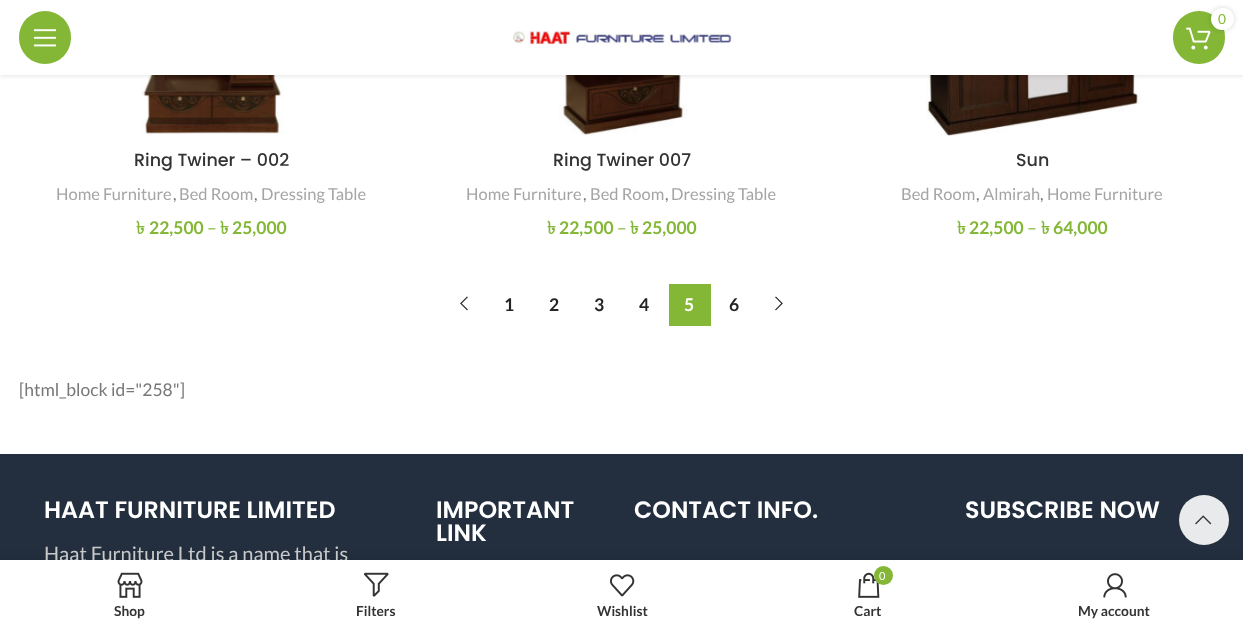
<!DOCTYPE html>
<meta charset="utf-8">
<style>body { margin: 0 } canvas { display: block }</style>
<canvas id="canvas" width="1243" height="628"></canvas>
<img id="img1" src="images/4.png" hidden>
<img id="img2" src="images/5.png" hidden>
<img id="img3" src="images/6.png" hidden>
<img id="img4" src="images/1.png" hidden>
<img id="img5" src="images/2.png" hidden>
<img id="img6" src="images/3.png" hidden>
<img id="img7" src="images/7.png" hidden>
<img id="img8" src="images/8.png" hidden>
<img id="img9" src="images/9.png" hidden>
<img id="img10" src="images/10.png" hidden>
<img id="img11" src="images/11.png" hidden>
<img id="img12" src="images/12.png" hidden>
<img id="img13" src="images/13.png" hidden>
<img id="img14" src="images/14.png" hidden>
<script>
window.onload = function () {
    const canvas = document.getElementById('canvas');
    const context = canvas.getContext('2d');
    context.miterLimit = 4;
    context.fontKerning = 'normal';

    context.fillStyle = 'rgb(255, 255, 255)';
    context.fillRect(0, 0, 1243, 628);
    context.drawImage(document.getElementById('img1'), 141, 75, 143, 59);
    context.drawImage(document.getElementById('img2'), 558, 75, 130, 61);
    context.drawImage(document.getElementById('img3'), 926, 75, 215, 61);
    context.fillStyle = 'rgba(0, 0, 0, 0.1)';
    context.filter = 'blur(2px)';
    context.beginPath();
    context.rect(0, 1, 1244, 75);
    context.fill();
    context.filter = 'none';
    context.fillStyle = 'rgb(255, 255, 255)';
    context.fillRect(0, 0, 1243, 75);
    context.fillStyle = 'rgb(131, 183, 53)';
    context.beginPath();
    context.roundRect(19, 11, 52, 53, 26);
    context.fill();
    context.drawImage(document.getElementById('img4'), 34, 29, 22, 18);
    context.beginPath();
    context.roundRect(1173, 11, 52, 53, 26);
    context.fill();
    context.drawImage(document.getElementById('img5'), 1186, 27, 25, 23);
    context.fillStyle = 'rgba(0, 0, 0, 0.17)';
    context.filter = 'blur(2.5px)';
    context.beginPath();
    context.roundRect(1211, 8, 23, 22, 11);
    context.fill();
    context.filter = 'none';
    context.fillStyle = 'rgb(255, 255, 255)';
    context.beginPath();
    context.roundRect(1211, 8, 23, 22, 11);
    context.fill();
    context.drawImage(document.getElementById('img6'), 513, 30, 219, 15);
    context.drawImage(document.getElementById('img7'), 460, 296, 8, 15);
    context.fillStyle = 'rgb(131, 183, 53)';
    context.fillRect(669, 284, 42, 42);
    context.drawImage(document.getElementById('img8'), 775, 296, 8, 15);
    context.fillStyle = 'rgb(35, 47, 62)';
    context.fillRect(0, 454, 1243, 106);
    context.fillStyle = 'rgba(255, 255, 255, 0.9)';
    context.beginPath();
    context.arc(1204, 520, 25, 0, 2 * Math.PI);
    context.fill();
    context.drawImage(document.getElementById('img9'), 1195, 515, 17, 10);
    context.fillStyle = 'rgba(0, 0, 0, 0.12)';
    context.filter = 'blur(5.5px)';
    context.beginPath();
    context.rect(0, 560, 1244, 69);
    context.fill();
    context.filter = 'none';
    context.font = '13.75px Lato';
    context.fillStyle = 'rgb(131, 183, 53)';
    context.fillText('0', 1218, 24);
    context.font = '500 17.5px Poppins';
    context.fillStyle = 'rgb(51, 51, 51)';
    context.fillText('Ring Twiner – 002', 134, 166);
    context.font = '16.5px Lato';
    context.fillStyle = 'rgb(165, 165, 165)';
    context.fillText('Home Furniture', 56, 200);
    context.fillStyle = 'rgb(119, 119, 119)';
    context.fillText(',', 173, 200);
    context.fillStyle = 'rgb(165, 165, 165)';
    context.fillText('Bed Room', 179, 200);
    context.fillStyle = 'rgb(119, 119, 119)';
    context.fillText(',', 254, 200);
    context.fillStyle = 'rgb(165, 165, 165)';
    context.fillText('Dressing Table', 261, 200);
    context.font = 'bold 17.5px Lohit Bengali';
    context.fillStyle = 'rgb(131, 183, 53)';
    context.fillText('৳', 136, 234);
    context.font = 'bold 17.5px Lato';
    context.fillText('22,500', 149, 234);
    context.font = '17.5px Lato';
    context.fillText('–', 207, 234);
    context.font = 'bold 17.5px Lohit Bengali';
    context.fillText('৳', 220, 234);
    context.font = 'bold 17.5px Lato';
    context.fillText('25,000', 232, 234);
    context.font = '500 17.5px Poppins';
    context.fillStyle = 'rgb(51, 51, 51)';
    context.fillText('Ring Twiner 007', 553, 166);
    context.font = '16.5px Lato';
    context.fillStyle = 'rgb(165, 165, 165)';
    context.fillText('Home Furniture', 466, 200);
    context.fillStyle = 'rgb(119, 119, 119)';
    context.fillText(',', 583, 200);
    context.fillStyle = 'rgb(165, 165, 165)';
    context.fillText('Bed Room', 590, 200);
    context.fillStyle = 'rgb(119, 119, 119)';
    context.fillText(',', 665, 200);
    context.fillStyle = 'rgb(165, 165, 165)';
    context.fillText('Dressing Table', 671, 200);
    context.font = 'bold 17.5px Lohit Bengali';
    context.fillStyle = 'rgb(131, 183, 53)';
    context.fillText('৳', 547, 234);
    context.font = 'bold 17.5px Lato';
    context.fillText('22,500', 559, 234);
    context.font = '17.5px Lato';
    context.fillText('–', 617, 234);
    context.font = 'bold 17.5px Lohit Bengali';
    context.fillText('৳', 630, 234);
    context.font = 'bold 17.5px Lato';
    context.fillText('25,000', 642, 234);
    context.font = '500 17.5px Poppins';
    context.fillStyle = 'rgb(51, 51, 51)';
    context.fillText('Sun', 1016, 166);
    context.font = '16.5px Lato';
    context.fillStyle = 'rgb(165, 165, 165)';
    context.fillText('Bed Room', 901, 200);
    context.fillStyle = 'rgb(119, 119, 119)';
    context.fillText(',', 976, 200);
    context.fillStyle = 'rgb(165, 165, 165)';
    context.fillText('Almirah', 983, 200);
    context.fillStyle = 'rgb(119, 119, 119)';
    context.fillText(',', 1040, 200);
    context.fillStyle = 'rgb(165, 165, 165)';
    context.fillText('Home Furniture', 1047, 200);
    context.font = 'bold 17.5px Lohit Bengali';
    context.fillStyle = 'rgb(131, 183, 53)';
    context.fillText('৳', 957, 234);
    context.font = 'bold 17.5px Lato';
    context.fillText('22,500', 969, 234);
    context.font = '17.5px Lato';
    context.fillText('–', 1027, 234);
    context.font = 'bold 17.5px Lohit Bengali';
    context.fillText('৳', 1041, 234);
    context.font = 'bold 17.5px Lato';
    context.fillText('64,000', 1053, 234);
    context.fillStyle = 'rgb(36, 36, 36)';
    context.fillText('1', 504, 311);
    context.fillText('2', 549, 311);
    context.fillText('3', 594, 311);
    context.fillText('4', 639, 311);
    context.fillStyle = 'rgb(255, 255, 255)';
    context.fillText('5', 684, 311);
    context.fillStyle = 'rgb(36, 36, 36)';
    context.fillText('6', 729, 311);
    context.font = '17.5px Lato';
    context.fillStyle = 'rgb(119, 119, 119)';
    context.fillText('[html_block id="258"]', 19, 396);
    context.font = '600 23.75px Poppins';
    context.fillStyle = 'rgb(255, 255, 255)';
    context.fillText('HAAT FURNITURE LIMITED', 44, 518);
    context.font = '20px Lato';
    context.fillStyle = 'rgb(200, 200, 200)';
    context.fillText('Haat Furniture Ltd is a name that is', 44, 561);
    context.font = '600 23.75px Poppins';
    context.fillStyle = 'rgb(255, 255, 255)';
    context.fillText('IMPORTANT', 436, 518);
    context.fillText('LINK', 436, 541);
    context.fillText('CONTACT INFO.', 634, 518);
    context.fillText('SUBSCRIBE NOW', 965, 518);
    context.fillRect(0, 560, 1243, 68);
    context.drawImage(document.getElementById('img10'), 117, 572, 26, 26);
    context.font = 'bold 13.75px Lato';
    context.fillStyle = 'rgb(51, 51, 51)';
    context.fillText('Shop', 114, 616);
    context.drawImage(document.getElementById('img11'), 363, 572, 26, 25);
    context.fillText('Filters', 356, 616);
    context.drawImage(document.getElementById('img12'), 610, 574, 25, 23);
    context.fillText('Wishlist', 597, 616);
    context.drawImage(document.getElementById('img13'), 858, 572, 22, 26);
    context.fillStyle = 'rgb(131, 183, 53)';
    context.beginPath();
    context.arc(883.5, 575.5, 9.5, 0, 2 * Math.PI);
    context.fill();
    context.font = '11px Lato';
    context.fillStyle = 'rgb(255, 255, 255)';
    context.fillText('0', 879, 580);
    context.font = 'bold 13.75px Lato';
    context.fillStyle = 'rgb(51, 51, 51)';
    context.fillText('Cart', 854, 616);
    context.drawImage(document.getElementById('img14'), 1103, 573, 24, 25);
    context.fillText('My account', 1078, 616);
};
</script>
